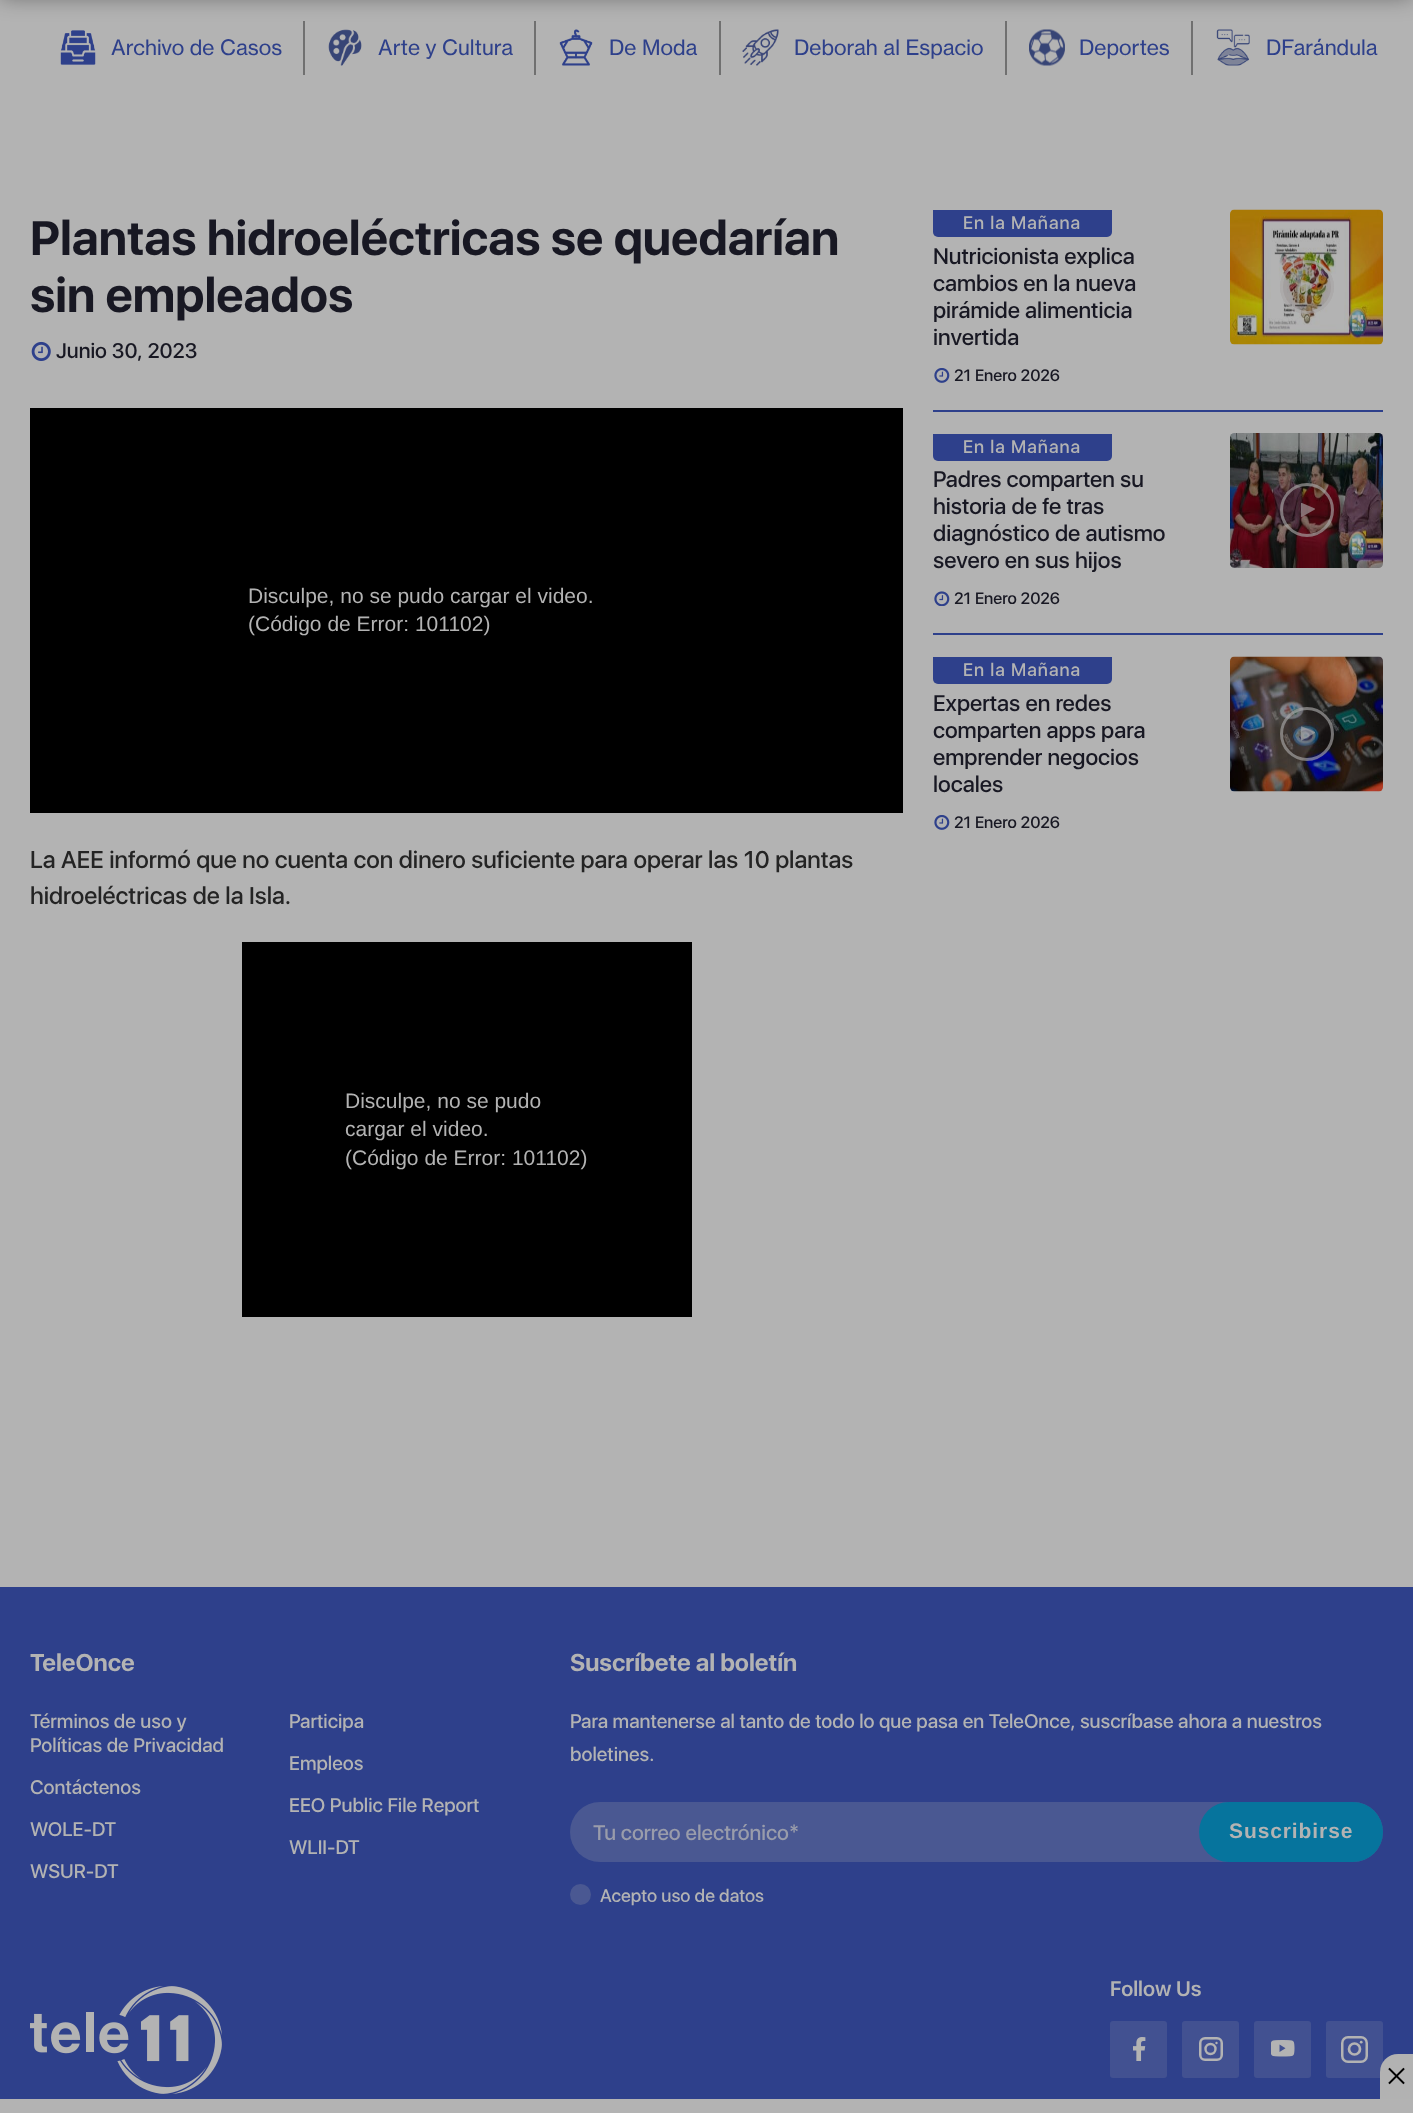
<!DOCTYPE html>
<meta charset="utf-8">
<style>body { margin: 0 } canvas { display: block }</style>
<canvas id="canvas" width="1413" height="2113"></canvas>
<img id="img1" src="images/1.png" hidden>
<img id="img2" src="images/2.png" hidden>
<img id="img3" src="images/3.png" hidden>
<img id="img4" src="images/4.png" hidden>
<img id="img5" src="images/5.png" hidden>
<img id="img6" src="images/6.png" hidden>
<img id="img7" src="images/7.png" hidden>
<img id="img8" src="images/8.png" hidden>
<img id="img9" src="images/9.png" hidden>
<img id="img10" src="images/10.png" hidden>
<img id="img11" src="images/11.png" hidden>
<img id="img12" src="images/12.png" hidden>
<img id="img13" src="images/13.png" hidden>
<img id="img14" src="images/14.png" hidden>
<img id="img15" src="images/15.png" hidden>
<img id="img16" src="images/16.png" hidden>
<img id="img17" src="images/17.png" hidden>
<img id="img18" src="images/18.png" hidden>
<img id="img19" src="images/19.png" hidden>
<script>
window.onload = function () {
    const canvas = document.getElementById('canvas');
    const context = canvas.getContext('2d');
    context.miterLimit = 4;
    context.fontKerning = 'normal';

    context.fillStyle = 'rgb(179, 179, 179)';
    context.fillRect(0, 0, 1413, 2113);
    context.drawImage(document.getElementById('img1'), 60, 30, 36, 35);
    context.fillStyle = 'rgb(112, 112, 112)';
    context.fillRect(303, 21, 2, 54);
    context.drawImage(document.getElementById('img2'), 328, 29, 34, 37);
    context.fillRect(534, 21, 2, 54);
    context.drawImage(document.getElementById('img3'), 559, 29, 34, 37);
    context.fillRect(719, 21, 2, 54);
    context.drawImage(document.getElementById('img4'), 742, 29, 37, 37);
    context.fillRect(1005, 21, 2, 54);
    context.drawImage(document.getElementById('img5'), 1029, 29, 36, 37);
    context.fillRect(1191, 21, 2, 54);
    context.drawImage(document.getElementById('img6'), 1216, 29, 34, 37);
    context.fillStyle = 'rgba(0, 0, 0, 0.4)';
    context.filter = 'blur(11px)';
    context.beginPath();
    context.rect(0, -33, 1413, 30);
    context.fill();
    context.filter = 'none';
    context.drawImage(document.getElementById('img7'), 31, 341, 20, 20);
    context.fillStyle = 'rgb(0, 0, 0)';
    context.fillRect(30, 408, 873, 405);
    context.fillRect(242, 942, 450, 375);
    context.fillStyle = 'rgb(46, 64, 139)';
    context.fillRect(933, 410, 450, 2);
    context.beginPath();
    context.roundRect(933, 210, 179, 27, [0, 0, 5, 5]);
    context.fill();
    context.drawImage(document.getElementById('img8'), 1230, 209, 153, 136);
    context.fillStyle = 'rgba(46, 20, 20, 0.12)';
    context.beginPath();
    context.arc(1307, 287, 27, 0, 2 * Math.PI);
    context.fill();
    context.beginPath();
    context.arc(1307, 287, 25.5, 0, 2 * Math.PI);
    context.strokeStyle = 'rgba(179, 179, 179, 0.6)';
    context.lineWidth = 3;
    context.stroke();
    context.drawImage(document.getElementById('img9'), 1301, 279, 14, 15);
    context.drawImage(document.getElementById('img10'), 934, 368, 16, 15);
    context.fillStyle = 'rgb(46, 64, 139)';
    context.fillRect(933, 633, 450, 2);
    context.beginPath();
    context.roundRect(933, 434, 179, 27, [0, 0, 5, 5]);
    context.fill();
    context.drawImage(document.getElementById('img11'), 1230, 433, 153, 135);
    context.fillStyle = 'rgba(46, 20, 20, 0.12)';
    context.beginPath();
    context.arc(1307, 510, 27, 0, 2 * Math.PI);
    context.fill();
    context.beginPath();
    context.arc(1307, 510, 25.5, 0, 2 * Math.PI);
    context.stroke();
    context.drawImage(document.getElementById('img12'), 1301, 503, 14, 14);
    context.drawImage(document.getElementById('img13'), 934, 591, 16, 15);
    context.fillStyle = 'rgb(46, 64, 139)';
    context.beginPath();
    context.roundRect(933, 657, 179, 27, [0, 0, 5, 5]);
    context.fill();
    context.drawImage(document.getElementById('img14'), 1230, 656, 153, 136);
    context.fillStyle = 'rgba(46, 20, 20, 0.12)';
    context.beginPath();
    context.arc(1307, 734, 27, 0, 2 * Math.PI);
    context.fill();
    context.beginPath();
    context.arc(1307, 734, 25.5, 0, 2 * Math.PI);
    context.stroke();
    context.drawImage(document.getElementById('img15'), 1301, 726, 14, 15);
    context.drawImage(document.getElementById('img10'), 934, 815, 16, 15);
    context.fillStyle = 'rgb(46, 64, 139)';
    context.fillRect(0, 1587, 1413, 512);
    context.fillStyle = 'rgb(74, 88, 146)';
    context.beginPath();
    context.roundRect(570, 1802, 813, 60, 30);
    context.fill();
    context.fillStyle = 'rgb(6, 116, 157)';
    context.beginPath();
    context.roundRect(1199, 1802, 184, 60, 30);
    context.fill();
    context.fillStyle = 'rgb(74, 88, 146)';
    context.beginPath();
    context.arc(580.5, 1894.5, 10.5, 0, 2 * Math.PI);
    context.fill();
    context.drawImage(document.getElementById('img16'), 30, 1986, 192, 108);
    context.fillStyle = 'rgb(66, 81, 145)';
    context.beginPath();
    context.roundRect(1110, 2021, 57, 57, 3);
    context.fill();
    context.drawImage(document.getElementById('img17'), 1133, 2037, 13, 24);
    context.beginPath();
    context.roundRect(1182, 2021, 57, 57, 3);
    context.fill();
    context.beginPath();
    context.roundRect(1200.25, 2038.25, 21.5, 21.5, 4.75);
    context.strokeStyle = 'rgb(179, 179, 179)';
    context.lineWidth = 2.5;
    context.stroke();
    context.beginPath();
    context.arc(1210.5, 2049, 5, 0, 2 * Math.PI);
    context.lineWidth = 2.4;
    context.stroke();
    context.fillStyle = 'rgb(179, 179, 179)';
    context.beginPath();
    context.arc(1216.5, 2043, 1.2, 0, 2 * Math.PI);
    context.fill();
    context.fillStyle = 'rgb(66, 81, 145)';
    context.beginPath();
    context.roundRect(1254, 2021, 57, 57, 3);
    context.fill();
    context.drawImage(document.getElementById('img18'), 1271, 2040, 24, 17);
    context.beginPath();
    context.roundRect(1326, 2021, 57, 57, 3);
    context.fill();
    context.beginPath();
    context.roundRect(1342.25, 2037.25, 24.5, 24.5, 5.75);
    context.lineWidth = 2.5;
    context.stroke();
    context.beginPath();
    context.arc(1354.5, 2049, 5.5, 0, 2 * Math.PI);
    context.lineWidth = 2.7;
    context.stroke();
    context.fillStyle = 'rgb(179, 179, 179)';
    context.beginPath();
    context.arc(1361.2, 2042.2, 1.4, 0, 2 * Math.PI);
    context.fill();
    context.fillStyle = 'rgb(178, 178, 178)';
    context.beginPath();
    context.roundRect(1380, 2054, 33, 45, [18, 0, 0, 0]);
    context.fill();
    context.drawImage(document.getElementById('img19'), 1388, 2067, 17, 18);
    context.font = '21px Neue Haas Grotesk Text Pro';
    context.fillStyle = 'rgb(46, 64, 139)';
    context.fillText('Archivo de Casos', 111, 55);
    context.fillText('Arte y Cultura', 378, 55);
    context.fillText('De Moda', 609, 55);
    context.fillText('Deborah al Espacio', 794, 55);
    context.fillText('Deportes', 1079, 55);
    context.fillText('DFarándula', 1266, 55);
    context.font = 'bold 48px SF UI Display';
    context.fillStyle = 'rgb(24, 24, 35)';
    context.fillText('Plantas hidroeléctricas se quedarían', 30, 255);
    context.fillText('sin empleados', 30, 312);
    context.font = '500 21px SF UI Display';
    context.fillText('Junio 30, 2023', 56, 358);
    context.font = '21px Liberation Sans';
    context.fillStyle = 'rgb(179, 179, 179)';
    context.fillText('Disculpe, no se pudo cargar el video.', 248, 603);
    context.fillText('(Código de Error: 101102)', 248, 631);
    context.font = '500 24px SF UI Display';
    context.fillStyle = 'rgb(36, 36, 36)';
    context.fillText('La AEE informó que no cuenta con dinero suficiente para operar las 10 plantas', 30, 868);
    context.fillText('hidroeléctricas de la Isla.', 30, 904);
    context.font = '21px Liberation Sans';
    context.fillStyle = 'rgb(179, 179, 179)';
    context.fillText('Disculpe, no se pudo', 345, 1108);
    context.fillText('cargar el video.', 345, 1136);
    context.fillText('(Código de Error: 101102)', 345, 1165);
    context.letterSpacing = '1px';
    context.font = '500 18px SF UI Display';
    context.fillText('En la Mañana', 963, 229);
    context.letterSpacing = '0px';
    context.font = '500 22.5px SF UI Display';
    context.fillStyle = 'rgb(24, 24, 35)';
    context.fillText('Nutricionista explica', 933, 264);
    context.fillText('cambios en la nueva', 933, 291);
    context.fillText('pirámide alimenticia', 933, 318);
    context.fillText('invertida', 933, 345);
    context.font = '500 16.5px SF UI Display';
    context.fillText('21 Enero 2026', 954, 381);
    context.letterSpacing = '1px';
    context.font = '500 18px SF UI Display';
    context.fillStyle = 'rgb(179, 179, 179)';
    context.fillText('En la Mañana', 963, 453);
    context.letterSpacing = '0px';
    context.font = '500 22.5px SF UI Display';
    context.fillStyle = 'rgb(24, 24, 35)';
    context.fillText('Padres comparten su', 933, 487);
    context.fillText('historia de fe tras', 933, 514);
    context.fillText('diagnóstico de autismo', 933, 541);
    context.fillText('severo en sus hijos', 933, 568);
    context.font = '500 16.5px SF UI Display';
    context.fillText('21 Enero 2026', 954, 604);
    context.letterSpacing = '1px';
    context.font = '500 18px SF UI Display';
    context.fillStyle = 'rgb(179, 179, 179)';
    context.fillText('En la Mañana', 963, 676);
    context.letterSpacing = '0px';
    context.font = '500 22.5px SF UI Display';
    context.fillStyle = 'rgb(24, 24, 35)';
    context.fillText('Expertas en redes', 933, 711);
    context.fillText('comparten apps para', 933, 738);
    context.fillText('emprender negocios', 933, 765);
    context.fillText('locales', 933, 792);
    context.font = '500 16.5px SF UI Display';
    context.fillText('21 Enero 2026', 954, 828);
    context.font = 'bold 24px SF UI Display';
    context.fillStyle = 'rgb(179, 179, 179)';
    context.fillText('TeleOnce', 30, 1671);
    context.font = '500 19.5px SF UI Display';
    context.fillText('Términos de uso y', 30, 1728);
    context.fillText('Políticas de Privacidad', 30, 1752);
    context.fillText('Contáctenos', 30, 1794);
    context.fillText('WOLE-DT', 30, 1836);
    context.fillText('WSUR-DT', 30, 1878);
    context.fillText('Participa', 289, 1728);
    context.fillText('Empleos', 289, 1770);
    context.fillText('EEO Public File Report', 289, 1812);
    context.fillText('WLII-DT', 289, 1854);
    context.font = 'bold 24px SF UI Display';
    context.fillText('Suscríbete al boletín', 570, 1671);
    context.font = '500 19.5px SF UI Display';
    context.fillText('Para mantenerse al tanto de todo lo que pasa en TeleOnce, suscríbase ahora a nuestros', 570, 1728);
    context.fillText('boletines.', 570, 1761);
    context.font = '500 21px SF UI Display';
    context.fillStyle = 'rgb(153, 156, 171)';
    context.fillText('Tu correo electrónico*', 593, 1840);
    context.letterSpacing = '0.9px';
    context.font = 'bold 21px Liberation Sans';
    context.fillStyle = 'rgb(179, 179, 179)';
    context.fillText('Suscribirse', 1229, 1838);
    context.letterSpacing = '0px';
    context.font = '500 18px SF UI Display';
    context.fillText('Acepto uso de datos', 600, 1902);
    context.font = '600 21px SF UI Display';
    context.fillText('Follow Us', 1110, 1996);
};
</script>
